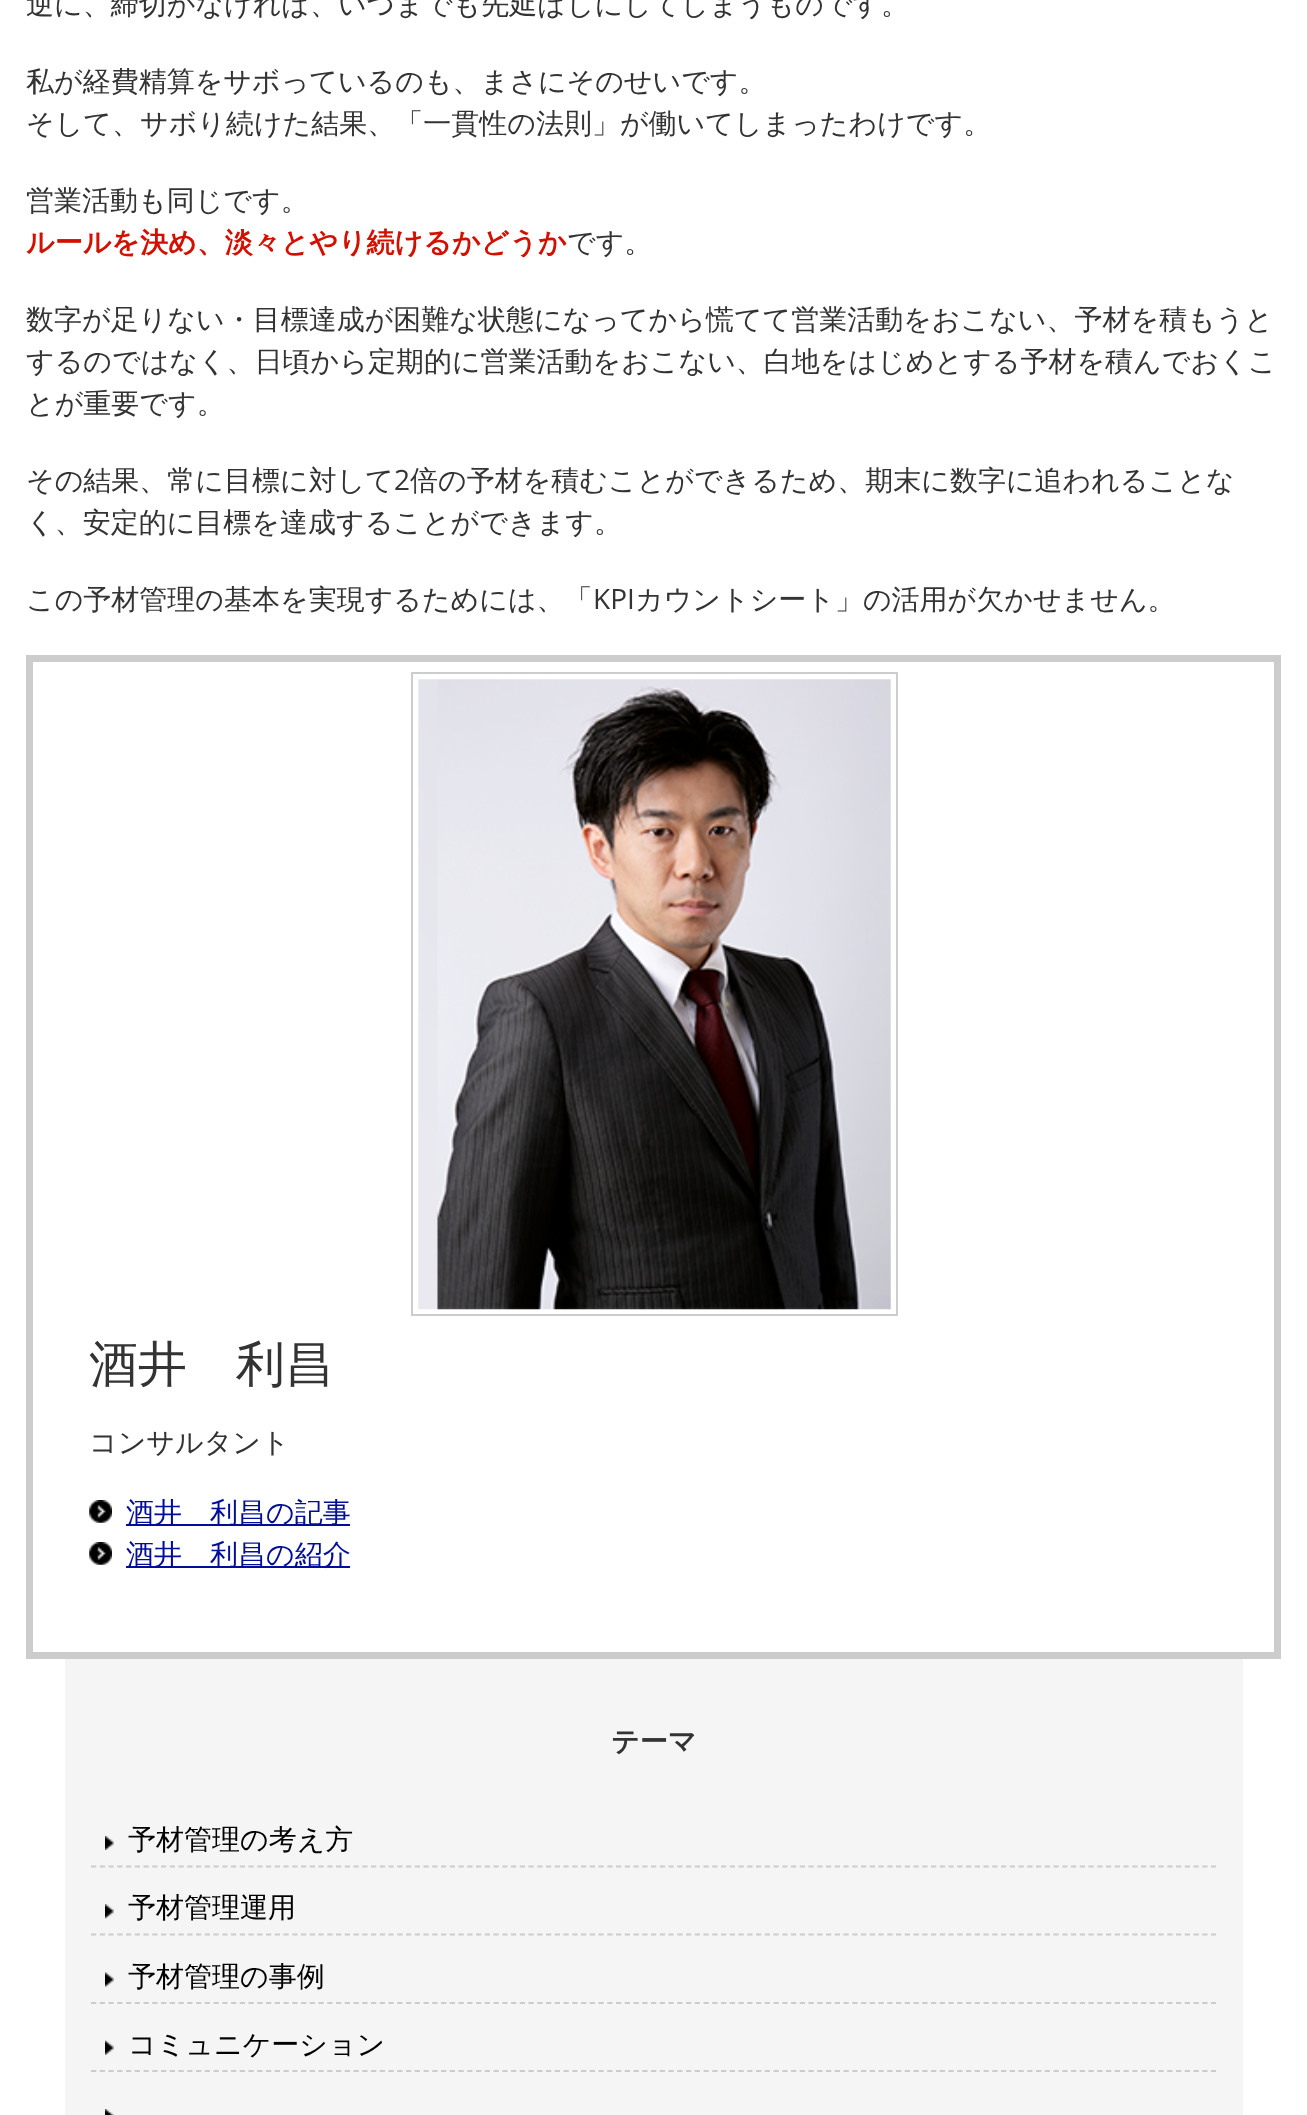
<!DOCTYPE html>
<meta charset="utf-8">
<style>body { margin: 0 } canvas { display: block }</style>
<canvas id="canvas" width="1307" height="2115"></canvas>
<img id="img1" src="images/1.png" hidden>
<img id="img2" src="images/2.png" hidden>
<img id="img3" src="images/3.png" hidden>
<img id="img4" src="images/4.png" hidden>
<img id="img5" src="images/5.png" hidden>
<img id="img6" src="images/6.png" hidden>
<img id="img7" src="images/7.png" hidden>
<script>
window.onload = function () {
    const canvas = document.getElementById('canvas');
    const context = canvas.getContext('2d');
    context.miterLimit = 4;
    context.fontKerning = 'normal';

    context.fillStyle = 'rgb(255, 255, 255)';
    context.fillRect(0, 0, 1307, 2115);
    context.strokeStyle = 'rgb(204, 204, 204)';
    context.lineWidth = 2;
    context.strokeRect(412, 673, 485, 642);
    context.drawImage(document.getElementById('img1'), 418, 679, 473, 631);
    context.lineWidth = 7;
    context.strokeRect(29.5, 658.5, 1248, 997);
    context.drawImage(document.getElementById('img2'), 89, 1500, 23, 23);
    context.fillStyle = 'rgb(0, 13, 153)';
    context.fillRect(126, 1524, 224, 2);
    context.drawImage(document.getElementById('img2'), 89, 1542, 23, 23);
    context.fillRect(126, 1566, 224, 2);
    context.fillStyle = 'rgb(245, 245, 245)';
    context.fillRect(65, 1659, 1178, 456);
    context.beginPath();
    context.moveTo(91, 1866.5);
    context.lineTo(1216, 1866.5);
    context.lineWidth = 1.8;
    context.setLineDash([5.25, 3.5]);
    context.stroke();
    context.drawImage(document.getElementById('img3'), 105, 1836, 9, 14);
    context.beginPath();
    context.moveTo(91, 1934.5);
    context.lineTo(1216, 1934.5);
    context.stroke();
    context.drawImage(document.getElementById('img4'), 105, 1904, 9, 15);
    context.beginPath();
    context.moveTo(91, 2003);
    context.lineTo(1216, 2003);
    context.stroke();
    context.drawImage(document.getElementById('img5'), 105, 1972, 9, 15);
    context.beginPath();
    context.moveTo(91, 2071);
    context.lineTo(1216, 2071);
    context.stroke();
    context.drawImage(document.getElementById('img6'), 105, 2040, 9, 15);
    context.drawImage(document.getElementById('img7'), 105, 2109, 9, 6);
    context.font = '500 28px WenQuanYi Zen Hei';
    context.fillStyle = 'rgb(51, 51, 51)';
    context.fillText('逆に、締切がなければ、いつまでも先延ばしにしてしまうものです。', 26, 14);
    context.fillText('私が経費精算をサボっているのも、まさにそのせいです。', 26, 91);
    context.fillText('そして、サボり続けた結果、「一貫性の法則」が働いてしまったわけです。', 26, 133);
    context.fillText('営業活動も同じです。', 26, 210);
    context.font = 'bold 28px WenQuanYi Zen Hei';
    context.fillStyle = 'rgb(211, 16, 0)';
    context.fillText('ルールを決め、淡々とやり続けるかどうか', 26, 252);
    context.font = '500 28px WenQuanYi Zen Hei';
    context.fillStyle = 'rgb(51, 51, 51)';
    context.fillText('です。', 567, 252);
    context.fillText('数字が足りない・目標達成が困難な状態になってから慌てて営業活動をおこない、予材を積もうと', 26, 329);
    context.fillText('するのではなく、日頃から定期的に営業活動をおこない、白地をはじめとする予材を積んでおくこ', 26, 371);
    context.fillText('とが重要です。', 26, 413);
    context.fillText('その結果、常に目標に対して', 26, 490);
    context.font = '28px Open Sans';
    context.fillText('2', 394, 490);
    context.font = '500 28px WenQuanYi Zen Hei';
    context.fillText('倍の予材を積むことができるため、期末に数字に追われることな', 410, 490);
    context.fillText('く、安定的に目標を達成することができます。', 26, 532);
    context.fillText('この予材管理の基本を実現するためには、「', 26, 609);
    context.font = '28px Open Sans';
    context.fillText('KPI', 593, 609);
    context.font = '500 28px WenQuanYi Zen Hei';
    context.fillText('カウントシート」の活用が欠かせません。', 635, 609);
    context.font = '500 49px WenQuanYi Zen Hei';
    context.fillText('酒井　利昌', 89, 1381);
    context.font = '500 28px WenQuanYi Zen Hei';
    context.fillText('コンサルタント', 89, 1452);
    context.fillStyle = 'rgb(0, 13, 153)';
    context.fillText('酒井　利昌の記事', 126, 1522);
    context.fillText('酒井　利昌の紹介', 126, 1564);
    context.font = 'bold 28px WenQuanYi Zen Hei';
    context.fillStyle = 'rgb(51, 51, 51)';
    context.fillText('テーマ', 611, 1751);
    context.font = '500 28px WenQuanYi Zen Hei';
    context.fillStyle = 'rgb(0, 0, 0)';
    context.fillText('予材管理の考え方', 128, 1849);
    context.fillText('予材管理運用', 128, 1917);
    context.fillText('予材管理の事例', 128, 1986);
    context.fillText('コミュニケーション', 128, 2054);
};
</script>
